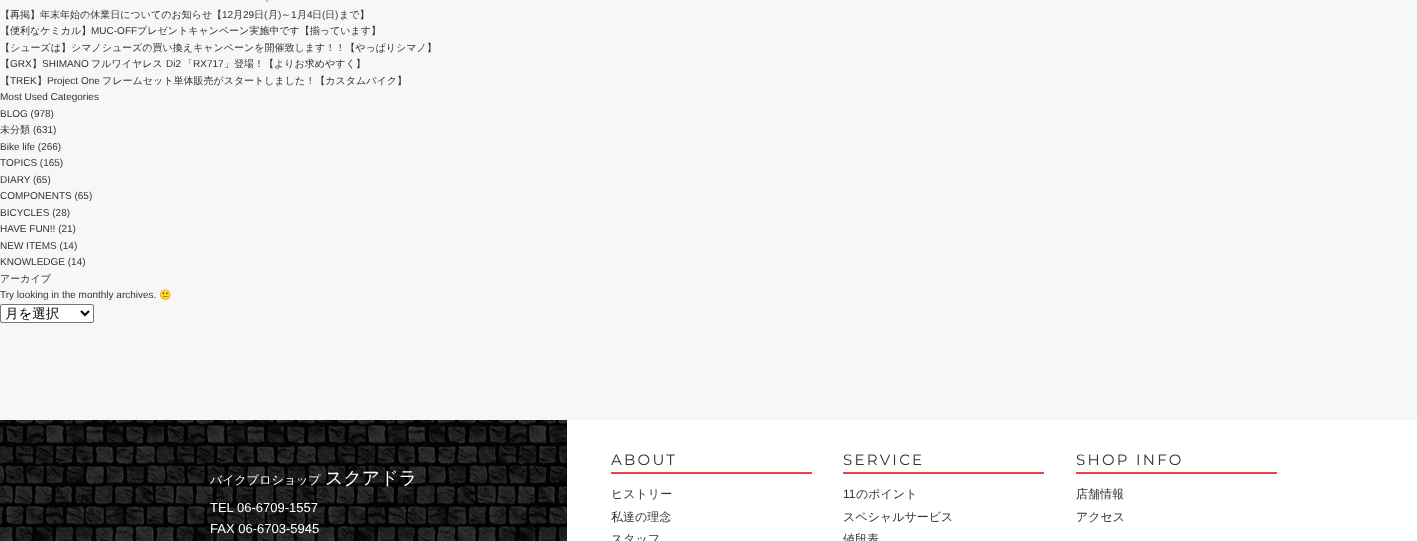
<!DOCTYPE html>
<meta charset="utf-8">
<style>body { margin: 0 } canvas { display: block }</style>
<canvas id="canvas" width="1417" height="541"></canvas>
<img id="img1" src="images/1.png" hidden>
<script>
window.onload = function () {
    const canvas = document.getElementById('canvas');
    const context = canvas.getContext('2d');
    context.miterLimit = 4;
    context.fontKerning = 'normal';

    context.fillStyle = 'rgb(247, 247, 247)';
    context.fillRect(0, 0, 1417, 541);
    context.fillStyle = 'rgb(255, 255, 255)';
    context.beginPath();
    context.roundRect(0.5, 304.5, 93, 18, 1.5);
    context.fill();
    context.strokeStyle = 'rgb(118, 118, 118)';
    context.stroke();
    context.beginPath();
    context.moveTo(81, 311);
    context.lineTo(85, 315);
    context.lineTo(89, 311);
    context.strokeStyle = 'rgb(0, 0, 0)';
    context.lineWidth = 2;
    context.stroke();
    context.drawImage(document.getElementById('img1'), 0, 420, 567, 121);
    context.fillRect(567, 420, 850, 121);
    context.fillStyle = 'rgb(232, 71, 62)';
    context.fillRect(611, 472, 201, 2);
    context.fillRect(843, 472, 201, 2);
    context.fillRect(1076, 472, 201, 2);
    context.font = '500 10px WenQuanYi Zen Hei';
    context.fillText('。', 265, 1);
    context.fillStyle = 'rgb(50, 50, 50)';
    context.fillText('【再掲】年末年始の休業日についてのお知らせ【', 0, 18);
    context.font = '10px Liberation Sans';
    context.fillText('12', 222, 18);
    context.font = '500 10px WenQuanYi Zen Hei';
    context.fillText('月', 233, 18);
    context.font = '10px Liberation Sans';
    context.fillText('29', 243, 18);
    context.font = '500 10px WenQuanYi Zen Hei';
    context.fillText('日', 254, 18);
    context.font = '10px Liberation Sans';
    context.fillText('(', 264, 18);
    context.font = '500 10px WenQuanYi Zen Hei';
    context.fillText('月', 268, 18);
    context.font = '10px Liberation Sans';
    context.fillText(')', 278, 18);
    context.font = '500 10px WenQuanYi Zen Hei';
    context.fillText('～', 281, 18);
    context.font = '10px Liberation Sans';
    context.fillText('1', 291, 18);
    context.font = '500 10px WenQuanYi Zen Hei';
    context.fillText('月', 297, 18);
    context.font = '10px Liberation Sans';
    context.fillText('4', 307, 18);
    context.font = '500 10px WenQuanYi Zen Hei';
    context.fillText('日', 312, 18);
    context.font = '10px Liberation Sans';
    context.fillText('(', 322, 18);
    context.font = '500 10px WenQuanYi Zen Hei';
    context.fillText('日', 325, 18);
    context.font = '10px Liberation Sans';
    context.fillText(')', 335, 18);
    context.font = '500 10px WenQuanYi Zen Hei';
    context.fillText('まで】', 339, 18);
    context.fillText('【便利なケミカル】', 0, 34);
    context.font = '10px Liberation Sans';
    context.fillText('MUC-OFF', 91, 34);
    context.font = '500 10px WenQuanYi Zen Hei';
    context.fillText('プレゼントキャンペーン実施中です【揃っています】', 137, 34);
    context.fillText('【シューズは】シマノシューズの買い換えキャンペーンを開催致します！！【やっぱりシマノ】', 0, 51);
    context.fillText('【', 0, 67);
    context.font = '10px Liberation Sans';
    context.fillText('GRX', 10, 67);
    context.font = '500 10px WenQuanYi Zen Hei';
    context.fillText('】', 32, 67);
    context.font = '10px Liberation Sans';
    context.fillText('SHIMANO', 42, 67);
    context.font = '500 10px WenQuanYi Zen Hei';
    context.fillText('フルワイヤレス', 91, 67);
    context.font = '10px Liberation Sans';
    context.fillText('Di2', 166, 67);
    context.font = '500 10px WenQuanYi Zen Hei';
    context.fillText('「', 183, 67);
    context.font = '10px Liberation Sans';
    context.fillText('RX717', 193, 67);
    context.font = '500 10px WenQuanYi Zen Hei';
    context.fillText('」登場！【よりお求めやすく】', 224, 67);
    context.fillText('【', 0, 84);
    context.font = '10px Liberation Sans';
    context.fillText('TREK', 10, 84);
    context.font = '500 10px WenQuanYi Zen Hei';
    context.fillText('】', 37, 84);
    context.font = '10px Liberation Sans';
    context.fillText('Project One', 47, 84);
    context.font = '500 10px WenQuanYi Zen Hei';
    context.fillText('フレームセット単体販売がスタートしました！【カスタムバイク】', 102, 84);
    context.font = '10px Liberation Sans';
    context.fillText('Most Used Categories', 0, 100);
    context.fillText('BLOG (978)', 0, 117);
    context.font = '500 10px WenQuanYi Zen Hei';
    context.fillText('未分類', 0, 133);
    context.font = '10px Liberation Sans';
    context.fillText('(631)', 33, 133);
    context.fillText('Bike life (266)', 0, 150);
    context.fillText('TOPICS (165)', 0, 166);
    context.fillText('DIARY (65)', 0, 183);
    context.fillText('COMPONENTS (65)', 0, 199);
    context.fillText('BICYCLES (28)', 0, 216);
    context.fillText('HAVE FUN!! (21)', 0, 232);
    context.fillText('NEW ITEMS (14)', 0, 249);
    context.fillText('KNOWLEDGE (14)', 0, 265);
    context.font = '500 10px WenQuanYi Zen Hei';
    context.fillText('アーカイブ', 0, 282);
    context.font = '10px Liberation Sans';
    context.fillText('Try looking in the monthly archives.', 0, 298);
    context.font = '10px Noto Color Emoji';
    context.fillText('🙂', 159, 298);
    context.font = '500 13.5px WenQuanYi Zen Hei';
    context.fillStyle = 'rgb(0, 0, 0)';
    context.fillText('月を選択', 5, 318);
    context.font = '500 12px WenQuanYi Zen Hei';
    context.fillStyle = 'rgb(255, 255, 255)';
    context.fillText('バイクプロショップ', 210, 484);
    context.font = '500 18px WenQuanYi Zen Hei';
    context.fillText('スクアドラ', 325, 484);
    context.font = '13px Liberation Sans';
    context.fillText('TEL 06-6709-1557', 210, 512);
    context.fillText('FAX 06-6703-5945', 210, 533);
    context.letterSpacing = '2.25px';
    context.font = '15px Montserrat';
    context.fillStyle = 'rgb(50, 50, 50)';
    context.fillText('ABOUT', 611, 465);
    context.letterSpacing = '0px';
    context.font = '500 12px WenQuanYi Zen Hei';
    context.fillText('ヒストリー', 611, 498);
    context.fillText('私達の理念', 611, 521);
    context.fillText('スタッフ', 611, 543);
    context.letterSpacing = '2.25px';
    context.font = '15px Montserrat';
    context.fillText('SERVICE', 843, 465);
    context.letterSpacing = '0px';
    context.font = '12px Liberation Sans';
    context.fillText('11', 843, 498);
    context.font = '500 12px WenQuanYi Zen Hei';
    context.fillText('のポイント', 856, 498);
    context.fillText('スペシャルサービス', 843, 521);
    context.fillText('値段表', 843, 543);
    context.letterSpacing = '2.25px';
    context.font = '15px Montserrat';
    context.fillText('SHOP INFO', 1076, 465);
    context.letterSpacing = '0px';
    context.font = '500 12px WenQuanYi Zen Hei';
    context.fillText('店舗情報', 1076, 498);
    context.fillText('アクセス', 1076, 521);
};
</script>
